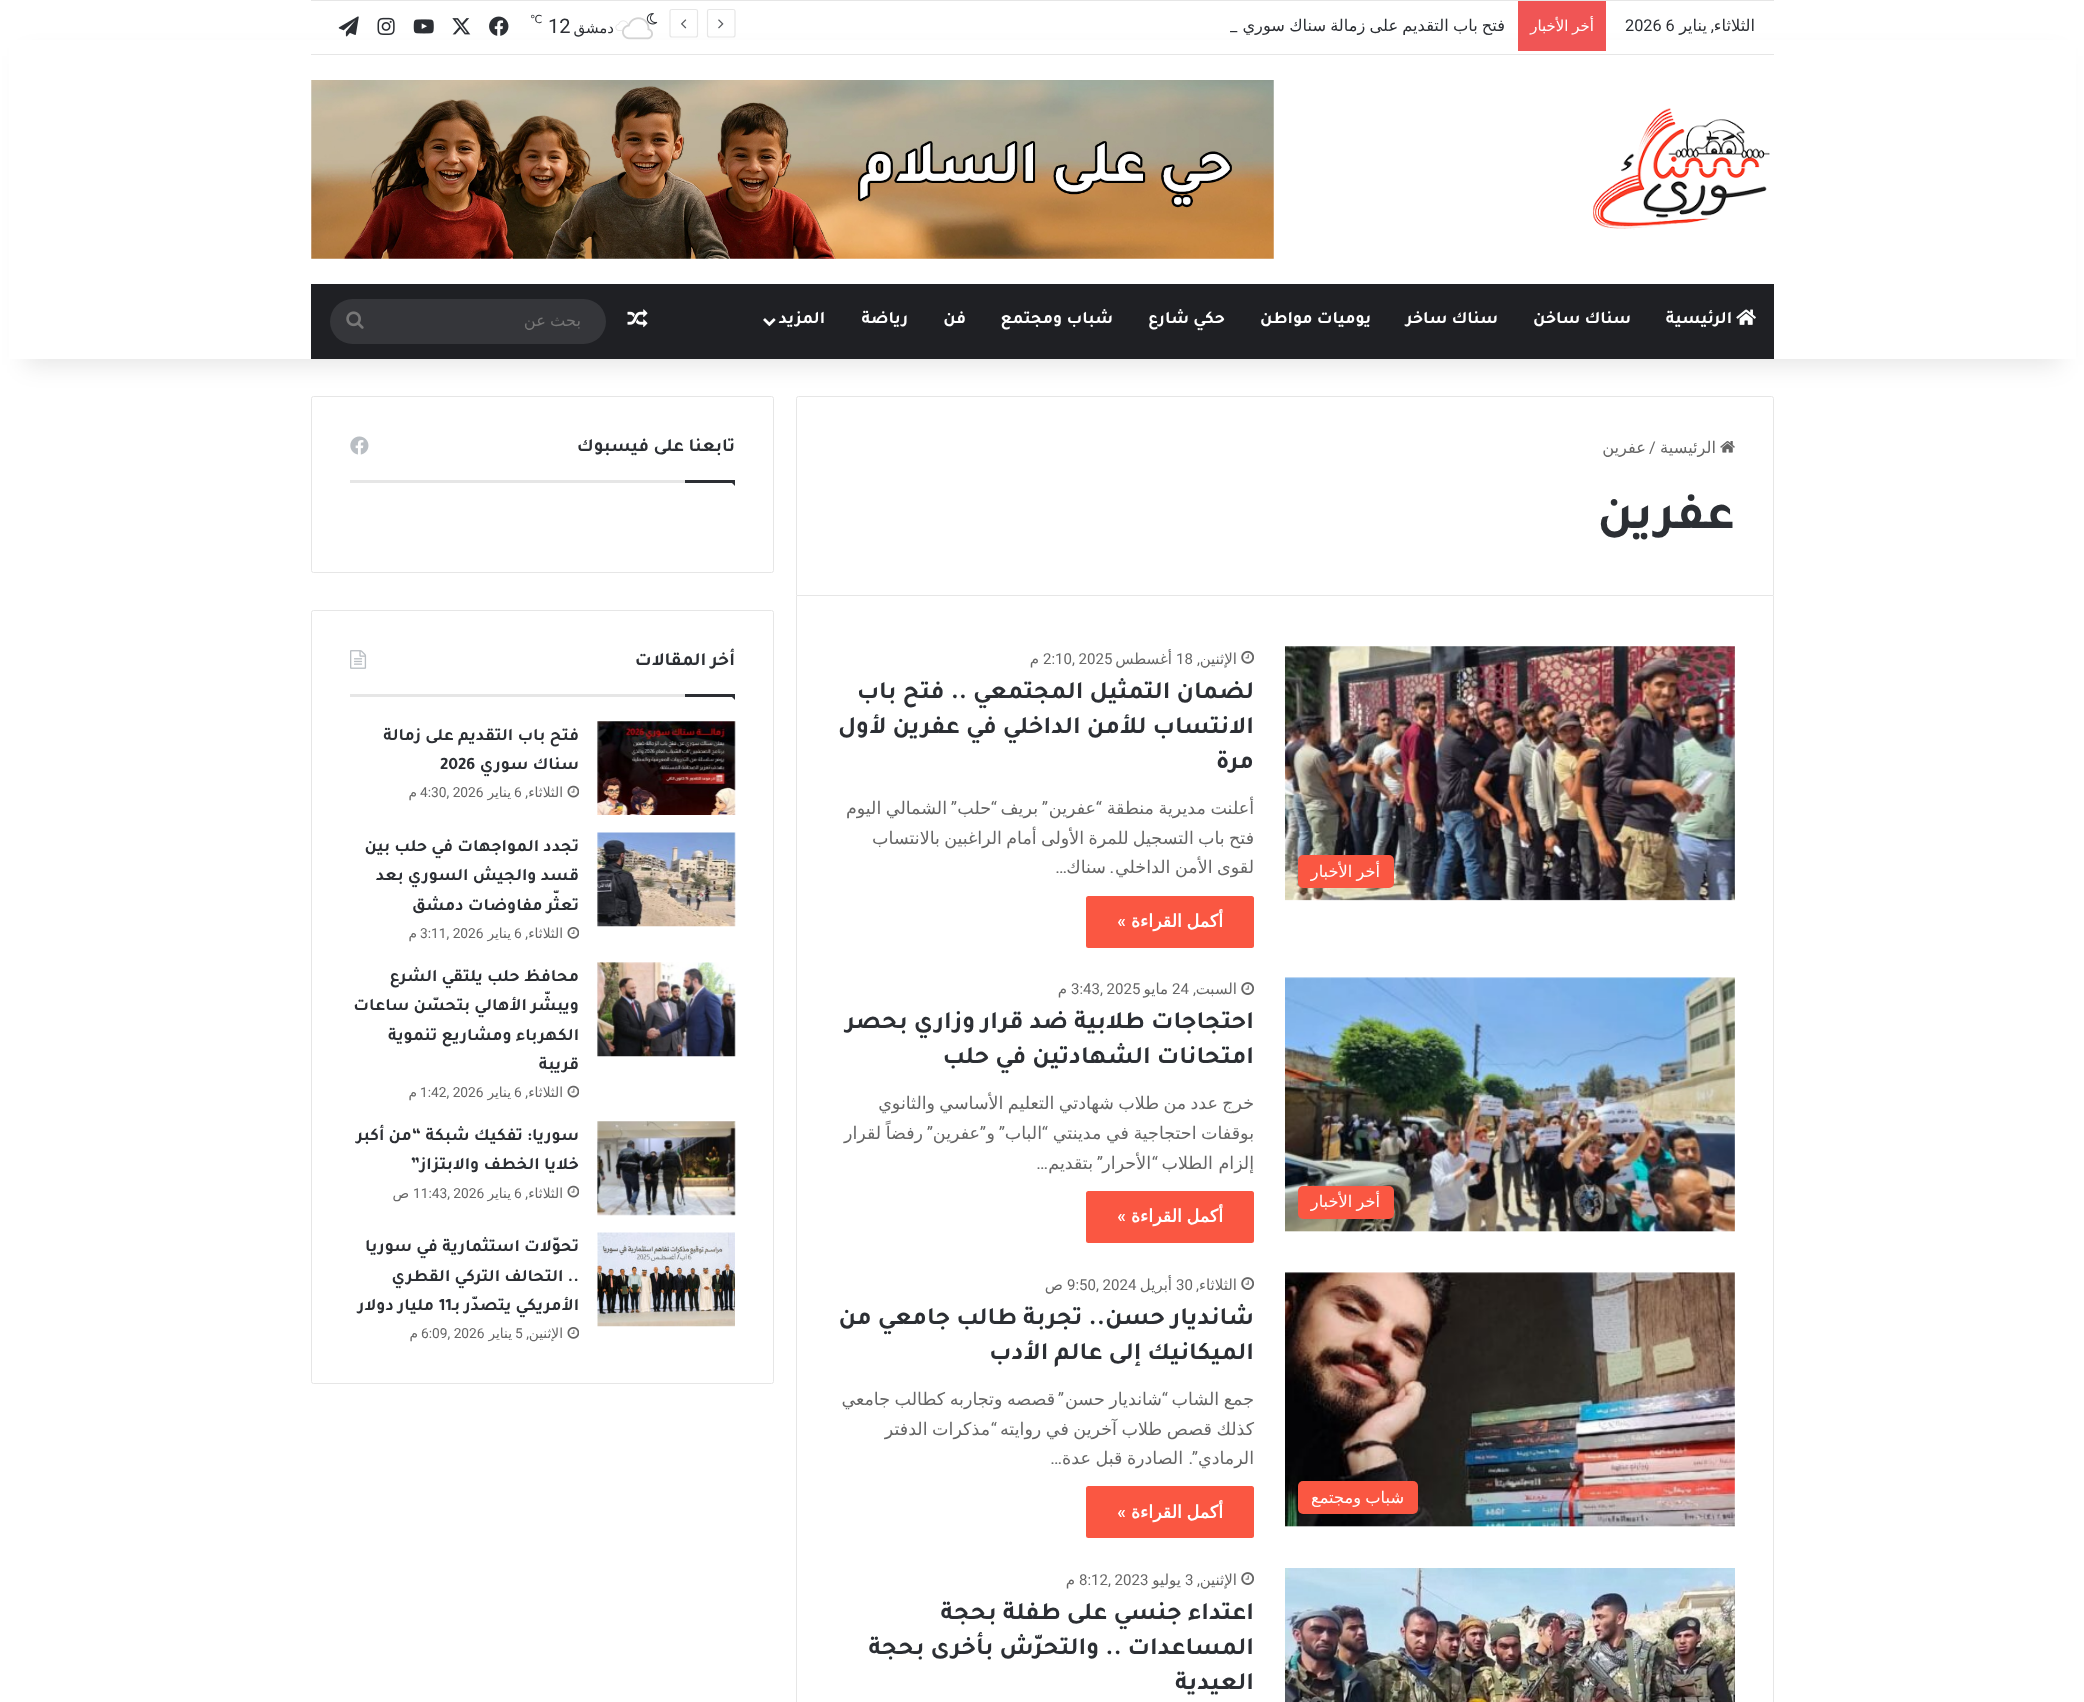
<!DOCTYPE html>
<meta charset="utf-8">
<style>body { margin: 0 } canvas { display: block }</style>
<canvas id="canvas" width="2084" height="1702"></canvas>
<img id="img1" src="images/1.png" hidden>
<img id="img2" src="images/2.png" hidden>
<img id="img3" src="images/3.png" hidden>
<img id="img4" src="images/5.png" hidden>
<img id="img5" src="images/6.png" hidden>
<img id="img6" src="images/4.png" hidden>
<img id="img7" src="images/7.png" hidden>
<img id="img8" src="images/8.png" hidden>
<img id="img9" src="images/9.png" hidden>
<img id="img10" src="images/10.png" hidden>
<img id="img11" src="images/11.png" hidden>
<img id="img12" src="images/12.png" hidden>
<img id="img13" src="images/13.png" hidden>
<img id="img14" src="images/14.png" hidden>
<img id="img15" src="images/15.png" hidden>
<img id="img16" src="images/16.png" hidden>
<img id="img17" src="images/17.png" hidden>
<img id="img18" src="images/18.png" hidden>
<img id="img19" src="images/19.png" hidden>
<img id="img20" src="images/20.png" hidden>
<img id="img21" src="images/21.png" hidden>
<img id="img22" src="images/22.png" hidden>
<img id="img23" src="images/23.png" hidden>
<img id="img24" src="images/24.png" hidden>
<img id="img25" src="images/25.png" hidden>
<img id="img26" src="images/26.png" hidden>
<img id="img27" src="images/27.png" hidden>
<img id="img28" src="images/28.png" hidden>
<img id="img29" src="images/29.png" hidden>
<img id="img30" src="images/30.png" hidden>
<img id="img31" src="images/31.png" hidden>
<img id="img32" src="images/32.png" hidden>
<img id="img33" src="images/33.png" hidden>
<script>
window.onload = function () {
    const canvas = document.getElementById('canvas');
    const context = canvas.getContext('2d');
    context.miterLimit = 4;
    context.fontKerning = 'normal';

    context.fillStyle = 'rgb(255, 255, 255)';
    context.fillRect(0, 0, 2084, 1702);
    context.beginPath();
    context.roundRect(796.5, 396.5, 977, 199, [2, 2, 0, 0]);
    context.strokeStyle = 'rgb(230, 230, 230)';
    context.stroke();
    context.beginPath();
    context.roundRect(311.5, 396.5, 462, 176, 2);
    context.stroke();
    context.fillStyle = 'rgba(0, 0, 0, 0.1)';
    context.filter = 'blur(12.5px)';
    context.beginPath();
    context.rect(25, 56, 2035, 309);
    context.fill();
    context.filter = 'none';
    context.fillStyle = 'rgb(255, 255, 255)';
    context.fillRect(9, 40, 2067, 319);
    context.fillStyle = 'rgb(230, 230, 230)';
    context.fillRect(311, 0, 1463, 1);
    context.fillRect(311, 54, 1463, 1);
    context.fillStyle = 'rgb(240, 85, 85)';
    context.fillRect(1518, 1, 88, 50);
    context.beginPath();
    context.moveTo(733, 37);
    context.lineTo(709.5, 37);
    context.bezierCurveTo(708.5, 37, 707.5, 36, 707.5, 35);
    context.lineTo(707.5, 11);
    context.bezierCurveTo(707.5, 10, 708.5, 9.5, 709.5, 9.5);
    context.lineTo(733, 9.5);
    context.bezierCurveTo(734, 9.5, 735, 10, 735, 11);
    context.lineTo(735, 35);
    context.bezierCurveTo(735, 36, 734, 37, 733, 37);
    context.closePath();
    context.lineWidth = 1.2;
    context.stroke();
    context.drawImage(document.getElementById('img1'), 718, 19, 6, 10);
    context.beginPath();
    context.moveTo(695.5, 37);
    context.lineTo(672, 37);
    context.bezierCurveTo(671, 37, 670, 36, 670, 35);
    context.lineTo(670, 11);
    context.bezierCurveTo(670, 10, 671, 9.5, 672, 9.5);
    context.lineTo(695.5, 9.5);
    context.bezierCurveTo(696.5, 9.5, 697.5, 10, 697.5, 11);
    context.lineTo(697.5, 35);
    context.bezierCurveTo(697.5, 36, 696.5, 37, 695.5, 37);
    context.closePath();
    context.stroke();
    context.drawImage(document.getElementById('img2'), 681, 19, 6, 10);
    context.drawImage(document.getElementById('img3'), 646, 13, 12, 12);
    context.drawImage(document.getElementById('img4'), 615, 20, 14, 11);
    context.drawImage(document.getElementById('img5'), 622, 21, 26, 10);
    context.drawImage(document.getElementById('img6'), 622, 17, 31, 23);
    context.drawImage(document.getElementById('img7'), 489, 16, 20, 20);
    context.drawImage(document.getElementById('img8'), 452, 18, 19, 17);
    context.drawImage(document.getElementById('img9'), 413, 19, 21, 15);
    context.drawImage(document.getElementById('img10'), 377, 17, 18, 18);
    context.drawImage(document.getElementById('img11'), 338, 16, 21, 21);
    context.drawImage(document.getElementById('img12'), 1593, 108, 177, 122);
    context.drawImage(document.getElementById('img13'), 311, 80, 963, 179);
    context.fillStyle = 'rgb(31, 32, 36)';
    context.fillRect(311, 284, 1463, 75);
    context.drawImage(document.getElementById('img14'), 1736, 309, 20, 16);
    context.drawImage(document.getElementById('img15'), 763, 318, 13, 9);
    context.drawImage(document.getElementById('img16'), 627, 309, 21, 19);
    context.fillStyle = 'rgb(53, 54, 58)';
    context.beginPath();
    context.roundRect(330, 299, 276, 45, 22.5);
    context.fill();
    context.drawImage(document.getElementById('img17'), 346, 311, 18, 18);
    context.drawImage(document.getElementById('img18'), 1720, 441, 15, 12);
    context.fillStyle = 'rgb(230, 230, 230)';
    context.fillRect(1773, 596, 1, 1106);
    context.fillRect(796, 596, 1, 1106);
    context.drawImage(document.getElementById('img19'), 1285, 646, 450, 255);
    context.fillStyle = 'rgb(250, 87, 66)';
    context.beginPath();
    context.roundRect(1298, 855, 96, 33, 5);
    context.fill();
    context.drawImage(document.getElementById('img20'), 1241, 650, 13, 14);
    context.beginPath();
    context.roundRect(1086, 896, 168, 52, 2.5);
    context.fill();
    context.drawImage(document.getElementById('img21'), 1285, 977, 450, 255);
    context.beginPath();
    context.roundRect(1298, 1186, 96, 33, 5);
    context.fill();
    context.drawImage(document.getElementById('img22'), 1241, 982, 13, 13);
    context.beginPath();
    context.roundRect(1086, 1191, 168, 52, 2.5);
    context.fill();
    context.drawImage(document.getElementById('img23'), 1285, 1272, 450, 255);
    context.beginPath();
    context.roundRect(1298, 1481, 120, 33, 5);
    context.fill();
    context.drawImage(document.getElementById('img22'), 1241, 1277, 13, 13);
    context.beginPath();
    context.roundRect(1086, 1486, 168, 52, 2.5);
    context.fill();
    context.drawImage(document.getElementById('img24'), 1285, 1568, 450, 134);
    context.drawImage(document.getElementById('img22'), 1241, 1572, 13, 13);
    context.fillStyle = 'rgb(230, 230, 230)';
    context.fillRect(350, 480, 335, 3);
    context.drawImage(document.getElementById('img25'), 350, 436, 19, 19);
    context.fillStyle = 'rgb(44, 47, 52)';
    context.beginPath();
    context.moveTo(729, 480);
    context.lineTo(735, 480);
    context.lineTo(735, 486);
    context.closePath();
    context.fill();
    context.fillRect(685, 480, 50, 3);
    context.beginPath();
    context.roundRect(311.5, 610.5, 462, 773, 2);
    context.lineWidth = 1;
    context.stroke();
    context.fillStyle = 'rgb(230, 230, 230)';
    context.fillRect(350, 694, 335, 3);
    context.drawImage(document.getElementById('img26'), 350, 650, 17, 19);
    context.fillStyle = 'rgb(44, 47, 52)';
    context.beginPath();
    context.moveTo(729, 694);
    context.lineTo(735, 694);
    context.lineTo(735, 700);
    context.closePath();
    context.fill();
    context.fillRect(685, 694, 50, 3);
    context.drawImage(document.getElementById('img27'), 597, 721, 139, 94);
    context.drawImage(document.getElementById('img28'), 567, 785, 12, 13);
    context.drawImage(document.getElementById('img29'), 597, 832, 139, 95);
    context.drawImage(document.getElementById('img30'), 567, 927, 12, 12);
    context.drawImage(document.getElementById('img31'), 597, 962, 139, 95);
    context.drawImage(document.getElementById('img28'), 567, 1085, 12, 13);
    context.drawImage(document.getElementById('img32'), 597, 1121, 139, 95);
    context.drawImage(document.getElementById('img28'), 567, 1185, 12, 13);
    context.drawImage(document.getElementById('img33'), 597, 1232, 138, 95);
    context.drawImage(document.getElementById('img30'), 567, 1327, 12, 12);
    context.direction = 'rtl';
    context.font = '16.25px DejaVu Sans';
    context.fillText('الثلاثاء', 1755, 31);
    context.font = '16.25px Roboto';
    context.fillText(',', 1714, 31);
    context.font = '16.25px DejaVu Sans';
    context.fillText('يناير', 1707, 31);
    context.direction = 'ltr';
    context.font = '16.25px Roboto';
    context.fillText('2026 6', 1625, 31);
    context.wordSpacing = '-1px';
    context.direction = 'rtl';
    context.font = '15px DejaVu Sans';
    context.fillStyle = 'rgb(255, 255, 255)';
    context.fillText('أخر الأخبار', 1594, 31);
    context.font = '16.25px DejaVu Sans';
    context.fillStyle = 'rgb(44, 47, 52)';
    context.fillText('فتح باب التقديم على زمالة سناك سوري', 1505, 31);
    context.wordSpacing = '0px';
    context.direction = 'ltr';
    context.font = '16.25px Roboto';
    context.fillText('_', 1230, 31);
    context.direction = 'rtl';
    context.font = '15px DejaVu Sans';
    context.fillText('دمشق', 614, 33);
    context.direction = 'ltr';
    context.font = '20px Roboto';
    context.fillText('12', 548, 33);
    context.font = '11px DejaVu Sans';
    context.fillText('℃', 530, 23);
    context.direction = 'rtl';
    context.font = 'bold 17.5px Tajawal';
    context.fillStyle = 'rgb(255, 255, 255)';
    context.fillText('الرئيسية', 1732, 323);
    context.fillText('سناك ساخن', 1631, 323);
    context.fillText('سناك ساخر', 1498, 323);
    context.fillText('يوميات مواطن', 1371, 323);
    context.fillText('حكي شارع', 1225, 323);
    context.fillText('شباب ومجتمع', 1113, 323);
    context.fillText('فن', 966, 323);
    context.fillText('رياضة', 908, 323);
    context.fillText('المزيد', 825, 323);
    context.wordSpacing = '-1px';
    context.font = '16.25px DejaVu Sans';
    context.fillStyle = 'rgb(117, 117, 117)';
    context.fillText('بحث عن', 581, 326);
    context.wordSpacing = '0px';
    context.fillStyle = 'rgb(102, 102, 102)';
    context.fillText('الرئيسية', 1716, 453);
    context.direction = 'ltr';
    context.font = '16.25px Roboto';
    context.fillText('/', 1649, 453);
    context.direction = 'rtl';
    context.font = '16.25px DejaVu Sans';
    context.fillText('عفرين', 1646, 453);
    context.font = 'bold 51px Tajawal';
    context.fillStyle = 'rgb(44, 47, 52)';
    context.fillText('عفرين', 1735, 528);
    context.wordSpacing = '-1px';
    context.font = '16.25px DejaVu Sans';
    context.fillStyle = 'rgb(255, 255, 255)';
    context.fillText('أخر الأخبار', 1380, 877);
    context.wordSpacing = '0px';
    context.font = '15px DejaVu Sans';
    context.fillStyle = 'rgb(102, 102, 102)';
    context.fillText('الإثنين', 1237, 664);
    context.font = '15px Roboto';
    context.fillText(',', 1200, 664);
    context.direction = 'ltr';
    context.fillText('18', 1176, 664);
    context.direction = 'rtl';
    context.font = '15px DejaVu Sans';
    context.fillText('أغسطس', 1172, 664);
    context.direction = 'ltr';
    context.font = '15px Roboto';
    context.fillText('2:10, 2025', 1043, 664);
    context.direction = 'rtl';
    context.font = '15px DejaVu Sans';
    context.fillText('م', 1039, 664);
    context.font = 'bold 25px Tajawal';
    context.fillStyle = 'rgb(44, 47, 52)';
    context.fillText('لضمان التمثيل المجتمعي .. فتح باب', 1254, 698);
    context.fillText('الانتساب للأمن الداخلي في عفرين لأول', 1254, 733);
    context.fillText('مرة', 1254, 768);
    context.wordSpacing = '-1px';
    context.font = '17.5px DejaVu Sans';
    context.fillStyle = 'rgb(102, 102, 102)';
    context.fillText('أعلنت مديرية منطقة', 1254, 814);
    context.wordSpacing = '0px';
    context.font = '17.5px Roboto';
    context.fillText('“', 1102, 814);
    context.fillText('”', 1048, 814);
    context.fillText('“', 997, 814);
    context.font = '17.5px DejaVu Sans';
    context.fillText('حلب', 991, 814);
    context.font = '17.5px Roboto';
    context.fillText('”', 957, 814);
    context.wordSpacing = '-1px';
    context.font = '17.5px DejaVu Sans';
    context.fillText('الشمالي اليوم', 947, 814);
    context.wordSpacing = '0px';
    context.fillText('عفرين', 1096, 814);
    context.fillText('بريف', 1038, 814);
    context.wordSpacing = '-1.25px';
    context.fillText('فتح باب التسجيل للمرة الأولى أمام الراغبين بالانتساب', 1254, 844);
    context.wordSpacing = '-1px';
    context.fillText('لقوى الأمن الداخلي', 1254, 873);
    context.wordSpacing = '0px';
    context.font = '17.5px Roboto';
    context.fillText('.', 1114, 873);
    context.font = '17.5px DejaVu Sans';
    context.fillText('سناك', 1106, 873);
    context.font = '17.5px Roboto';
    context.fillText('…', 1067, 873);
    context.wordSpacing = '-1px';
    context.font = 'bold 17.5px DejaVu Sans';
    context.fillStyle = 'rgb(255, 255, 255)';
    context.fillText('أكمل القراءة', 1223, 927);
    context.wordSpacing = '0px';
    context.font = '600 17.5px Roboto';
    context.fillText('»', 1126, 927);
    context.wordSpacing = '-1px';
    context.font = '16.25px DejaVu Sans';
    context.fillText('أخر الأخبار', 1380, 1207);
    context.wordSpacing = '0px';
    context.font = '15px DejaVu Sans';
    context.fillStyle = 'rgb(102, 102, 102)';
    context.fillText('السبت', 1237, 994);
    context.font = '15px Roboto';
    context.fillText(',', 1196, 994);
    context.direction = 'ltr';
    context.fillText('24', 1172, 994);
    context.direction = 'rtl';
    context.font = '15px DejaVu Sans';
    context.fillText('مايو', 1168, 994);
    context.direction = 'ltr';
    context.font = '15px Roboto';
    context.fillText('3:43, 2025', 1071, 994);
    context.direction = 'rtl';
    context.font = '15px DejaVu Sans';
    context.fillText('م', 1067, 994);
    context.font = 'bold 25px Tajawal';
    context.fillStyle = 'rgb(44, 47, 52)';
    context.fillText('احتجاجات طلابية ضد قرار وزاري بحصر', 1254, 1028);
    context.fillText('امتحانات الشهادتين في حلب', 1254, 1063);
    context.wordSpacing = '-1.25px';
    context.font = '17.5px DejaVu Sans';
    context.fillStyle = 'rgb(102, 102, 102)';
    context.fillText('خرج عدد من طلاب شهادتي التعليم الأساسي والثانوي', 1254, 1109);
    context.wordSpacing = '-1px';
    context.fillText('بوقفات احتجاجية في مدينتي', 1254, 1139);
    context.wordSpacing = '0px';
    context.font = '17.5px Roboto';
    context.fillText('“', 1048, 1139);
    context.font = '17.5px DejaVu Sans';
    context.fillText('الباب', 1042, 1139);
    context.font = '17.5px Roboto';
    context.fillText('”', 1005, 1139);
    context.font = '17.5px DejaVu Sans';
    context.fillText('و', 995, 1139);
    context.font = '17.5px Roboto';
    context.fillText('”', 986, 1139);
    context.font = '17.5px DejaVu Sans';
    context.fillText('عفرين', 980, 1139);
    context.font = '17.5px Roboto';
    context.fillText('”', 933, 1139);
    context.wordSpacing = '-1px';
    context.font = '17.5px DejaVu Sans';
    context.fillText('رفضاً لقرار', 923, 1139);
    context.wordSpacing = '0px';
    context.fillText('إلزام الطلاب', 1254, 1169);
    context.font = '17.5px Roboto';
    context.fillText('“', 1158, 1169);
    context.fillText('”', 1103, 1169);
    context.font = '17.5px DejaVu Sans';
    context.fillText('الأحرار', 1151, 1169);
    context.fillText('بتقديم', 1093, 1169);
    context.font = '17.5px Roboto';
    context.fillText('…', 1048, 1169);
    context.wordSpacing = '-1px';
    context.font = 'bold 17.5px DejaVu Sans';
    context.fillStyle = 'rgb(255, 255, 255)';
    context.fillText('أكمل القراءة', 1223, 1222);
    context.wordSpacing = '0px';
    context.font = '600 17.5px Roboto';
    context.fillText('»', 1126, 1222);
    context.wordSpacing = '-1px';
    context.font = '16.25px DejaVu Sans';
    context.fillText('شباب ومجتمع', 1404, 1503);
    context.wordSpacing = '0px';
    context.font = '15px DejaVu Sans';
    context.fillStyle = 'rgb(102, 102, 102)';
    context.fillText('الثلاثاء', 1237, 1290);
    context.font = '15px Roboto';
    context.fillText(',', 1199, 1290);
    context.direction = 'ltr';
    context.fillText('30', 1176, 1290);
    context.direction = 'rtl';
    context.font = '15px DejaVu Sans';
    context.fillText('أبريل', 1172, 1290);
    context.direction = 'ltr';
    context.font = '15px Roboto';
    context.fillText('9:50, 2024', 1067, 1290);
    context.direction = 'rtl';
    context.font = '15px DejaVu Sans';
    context.fillText('ص', 1063, 1290);
    context.font = 'bold 25px Tajawal';
    context.fillStyle = 'rgb(44, 47, 52)';
    context.fillText('شانديار حسن.. تجربة طالب جامعي من', 1254, 1324);
    context.fillText('الميكانيك إلى عالم الأدب', 1254, 1359);
    context.wordSpacing = '-1px';
    context.font = '17.5px DejaVu Sans';
    context.fillStyle = 'rgb(102, 102, 102)';
    context.fillText('جمع الشاب', 1254, 1405);
    context.wordSpacing = '0px';
    context.font = '17.5px Roboto';
    context.fillText('“', 1168, 1405);
    context.wordSpacing = '-1px';
    context.font = '17.5px DejaVu Sans';
    context.fillText('شانديار حسن', 1162, 1405);
    context.wordSpacing = '0px';
    context.font = '17.5px Roboto';
    context.fillText('”', 1064, 1405);
    context.wordSpacing = '-1px';
    context.font = '17.5px DejaVu Sans';
    context.fillText('قصصه وتجاربه كطالب جامعي', 1055, 1405);
    context.fillText('كذلك قصص طلاب آخرين في روايته', 1254, 1435);
    context.wordSpacing = '0px';
    context.font = '17.5px Roboto';
    context.fillText('“', 997, 1435);
    context.wordSpacing = '-1px';
    context.font = '17.5px DejaVu Sans';
    context.fillText('مذكرات الدفتر', 990, 1435);
    context.wordSpacing = '0px';
    context.fillText('الرمادي', 1254, 1464);
    context.font = '17.5px Roboto';
    context.fillText('”.', 1198, 1464);
    context.wordSpacing = '-1px';
    context.font = '17.5px DejaVu Sans';
    context.fillText('الصادرة قبل عدة', 1183, 1464);
    context.wordSpacing = '0px';
    context.font = '17.5px Roboto';
    context.fillText('…', 1062, 1464);
    context.wordSpacing = '-1px';
    context.font = 'bold 17.5px DejaVu Sans';
    context.fillStyle = 'rgb(255, 255, 255)';
    context.fillText('أكمل القراءة', 1223, 1518);
    context.wordSpacing = '0px';
    context.font = '600 17.5px Roboto';
    context.fillText('»', 1126, 1518);
    context.font = '15px DejaVu Sans';
    context.fillStyle = 'rgb(102, 102, 102)';
    context.fillText('الإثنين', 1237, 1585);
    context.font = '15px Roboto';
    context.fillText(',', 1200, 1585);
    context.direction = 'ltr';
    context.fillText('3', 1185, 1585);
    context.direction = 'rtl';
    context.font = '15px DejaVu Sans';
    context.fillText('يوليو', 1181, 1585);
    context.direction = 'ltr';
    context.font = '15px Roboto';
    context.fillText('8:12, 2023', 1079, 1585);
    context.direction = 'rtl';
    context.font = '15px DejaVu Sans';
    context.fillText('م', 1075, 1585);
    context.font = 'bold 25px Tajawal';
    context.fillStyle = 'rgb(44, 47, 52)';
    context.fillText('اعتداء جنسي على طفلة بحجة', 1254, 1619);
    context.fillText('المساعدات .. والتحرّش بأخرى بحجة', 1254, 1654);
    context.fillText('العيدية', 1254, 1689);
    context.font = 'bold 18.75px Tajawal';
    context.fillText('تابعنا على فيسبوك', 735, 451);
    context.fillText('أخر المقالات', 735, 665);
    context.font = 'bold 17.5px Tajawal';
    context.fillText('فتح باب التقديم على زمالة', 579, 740);
    context.fillText('سناك سوري', 579, 769);
    context.direction = 'ltr';
    context.fillText('2026', 440, 769);
    context.direction = 'rtl';
    context.font = '13.75px DejaVu Sans';
    context.fillStyle = 'rgb(102, 102, 102)';
    context.fillText('الثلاثاء', 563, 797);
    context.font = '13.75px Roboto';
    context.fillText(',', 528, 797);
    context.direction = 'ltr';
    context.fillText('6', 514, 797);
    context.direction = 'rtl';
    context.font = '13.75px DejaVu Sans';
    context.fillText('يناير', 511, 797);
    context.direction = 'ltr';
    context.font = '13.75px Roboto';
    context.fillText('4:30, 2026', 420, 797);
    context.direction = 'rtl';
    context.font = '13.75px DejaVu Sans';
    context.fillText('م', 417, 797);
    context.font = 'bold 17.5px Tajawal';
    context.fillStyle = 'rgb(44, 47, 52)';
    context.fillText('تجدد المواجهات في حلب بين', 579, 851);
    context.fillText('قسد والجيش السوري بعد', 579, 880);
    context.fillText('تعثّر مفاوضات دمشق', 579, 910);
    context.font = '13.75px DejaVu Sans';
    context.fillStyle = 'rgb(102, 102, 102)';
    context.fillText('الثلاثاء', 563, 938);
    context.font = '13.75px Roboto';
    context.fillText(',', 528, 938);
    context.direction = 'ltr';
    context.fillText('6', 514, 938);
    context.direction = 'rtl';
    context.font = '13.75px DejaVu Sans';
    context.fillText('يناير', 511, 938);
    context.direction = 'ltr';
    context.font = '13.75px Roboto';
    context.fillText('3:11, 2026', 420, 938);
    context.direction = 'rtl';
    context.font = '13.75px DejaVu Sans';
    context.fillText('م', 417, 938);
    context.font = 'bold 17.5px Tajawal';
    context.fillStyle = 'rgb(44, 47, 52)';
    context.fillText('محافظ حلب يلتقي الشرع', 579, 981);
    context.fillText('ويبشّر الأهالي بتحسّن ساعات', 579, 1010);
    context.fillText('الكهرباء ومشاريع تنموية', 579, 1040);
    context.fillText('قريبة', 579, 1069);
    context.font = '13.75px DejaVu Sans';
    context.fillStyle = 'rgb(102, 102, 102)';
    context.fillText('الثلاثاء', 563, 1097);
    context.font = '13.75px Roboto';
    context.fillText(',', 528, 1097);
    context.direction = 'ltr';
    context.fillText('6', 514, 1097);
    context.direction = 'rtl';
    context.font = '13.75px DejaVu Sans';
    context.fillText('يناير', 511, 1097);
    context.direction = 'ltr';
    context.font = '13.75px Roboto';
    context.fillText('1:42, 2026', 420, 1097);
    context.direction = 'rtl';
    context.font = '13.75px DejaVu Sans';
    context.fillText('م', 417, 1097);
    context.font = 'bold 17.5px Tajawal';
    context.fillStyle = 'rgb(44, 47, 52)';
    context.fillText('سوريا: تفكيك شبكة “من أكبر', 579, 1140);
    context.fillText('خلايا الخطف والابتزاز”', 579, 1169);
    context.font = '13.75px DejaVu Sans';
    context.fillStyle = 'rgb(102, 102, 102)';
    context.fillText('الثلاثاء', 563, 1198);
    context.font = '13.75px Roboto';
    context.fillText(',', 528, 1198);
    context.direction = 'ltr';
    context.fillText('6', 514, 1198);
    context.direction = 'rtl';
    context.font = '13.75px DejaVu Sans';
    context.fillText('يناير', 511, 1198);
    context.direction = 'ltr';
    context.font = '13.75px Roboto';
    context.fillText('11:43, 2026', 413, 1198);
    context.direction = 'rtl';
    context.font = '13.75px DejaVu Sans';
    context.fillText('ص', 409, 1198);
    context.font = 'bold 17.5px Tajawal';
    context.fillStyle = 'rgb(44, 47, 52)';
    context.fillText('تحوّلات استثمارية في سوريا', 579, 1251);
    context.fillText('.. التحالف التركي القطري', 579, 1281);
    context.fillText('الأمريكي يتصدّر بـ', 579, 1310);
    context.direction = 'ltr';
    context.fillText('11', 439, 1310);
    context.direction = 'rtl';
    context.fillText('مليار دولار', 434, 1310);
    context.font = '13.75px DejaVu Sans';
    context.fillStyle = 'rgb(102, 102, 102)';
    context.fillText('الإثنين', 563, 1338);
    context.font = '13.75px Roboto';
    context.fillText(',', 529, 1338);
    context.direction = 'ltr';
    context.fillText('5', 515, 1338);
    context.direction = 'rtl';
    context.font = '13.75px DejaVu Sans';
    context.fillText('يناير', 512, 1338);
    context.direction = 'ltr';
    context.font = '13.75px Roboto';
    context.fillText('6:09, 2026', 421, 1338);
    context.direction = 'rtl';
    context.font = '13.75px DejaVu Sans';
    context.fillText('م', 418, 1338);
};
</script>
